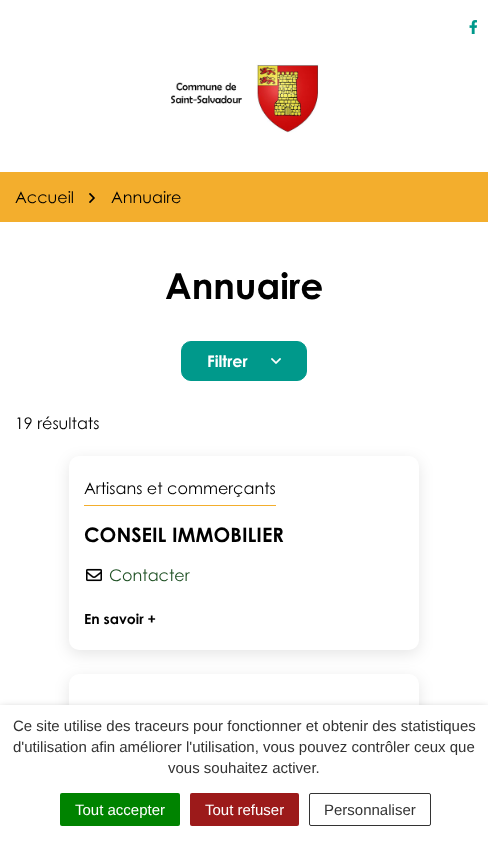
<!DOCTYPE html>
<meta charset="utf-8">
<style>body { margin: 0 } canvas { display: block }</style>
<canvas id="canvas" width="488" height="841"></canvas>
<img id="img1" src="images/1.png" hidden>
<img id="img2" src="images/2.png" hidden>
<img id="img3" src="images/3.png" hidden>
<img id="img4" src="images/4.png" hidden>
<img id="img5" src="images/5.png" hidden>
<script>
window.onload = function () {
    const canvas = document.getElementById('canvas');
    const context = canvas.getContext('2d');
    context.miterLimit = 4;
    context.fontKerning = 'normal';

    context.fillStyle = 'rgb(255, 255, 255)';
    context.fillRect(0, 0, 488, 841);
    context.drawImage(document.getElementById('img1'), 469, 20, 8, 14);
    context.drawImage(document.getElementById('img2'), 171, 64, 148, 69);
    context.fillStyle = 'rgb(243, 174, 45)';
    context.fillRect(0, 172, 488, 50);
    context.drawImage(document.getElementById('img3'), 89, 193, 6, 10);
    context.fillStyle = 'rgb(0, 153, 139)';
    context.beginPath();
    context.roundRect(181.5, 341.5, 125, 39, 9.5);
    context.fill();
    context.strokeStyle = 'rgb(0, 153, 139)';
    context.stroke();
    context.drawImage(document.getElementById('img4'), 271, 358, 10, 6);
    context.fillStyle = 'rgba(0, 0, 0, 0.1)';
    context.filter = 'blur(7.5px)';
    context.beginPath();
    context.roundRect(69, 460, 350, 194, 10);
    context.fill();
    context.filter = 'none';
    context.fillStyle = 'rgb(255, 255, 255)';
    context.beginPath();
    context.roundRect(69, 456, 350, 194, 10);
    context.fill();
    context.fillStyle = 'rgb(243, 174, 45)';
    context.fillRect(84, 505, 192, 1);
    context.drawImage(document.getElementById('img5'), 86, 568, 16, 14);
    context.fillStyle = 'rgba(0, 0, 0, 0.1)';
    context.filter = 'blur(7.5px)';
    context.beginPath();
    context.roundRect(69, 678, 350, 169, 10);
    context.fill();
    context.filter = 'none';
    context.fillStyle = 'rgb(255, 255, 255)';
    context.beginPath();
    context.roundRect(69, 674, 350, 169, 10);
    context.fill();
    context.fillStyle = 'rgba(0, 0, 0, 0.5)';
    context.filter = 'blur(5px)';
    context.beginPath();
    context.rect(0, 710, 488, 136);
    context.fill();
    context.filter = 'none';
    context.fillStyle = 'rgb(255, 255, 255)';
    context.fillRect(0, 705, 488, 136);
    context.fillStyle = 'rgb(0, 131, 0)';
    context.beginPath();
    context.roundRect(60, 793, 120, 33, 2);
    context.fill();
    context.fillStyle = 'rgb(156, 26, 26)';
    context.beginPath();
    context.roundRect(190, 793, 109, 33, 2);
    context.fill();
    context.beginPath();
    context.roundRect(309.5, 793.5, 121, 32, 1.5);
    context.strokeStyle = 'rgb(51, 51, 51)';
    context.stroke();
    context.font = '16px Century Gothic';
    context.fillStyle = 'rgb(0, 0, 0)';
    context.fillText('Accueil', 15, 203);
    context.fillText('Annuaire', 111, 203);
    context.font = 'bold 36px Century Gothic';
    context.fillText('Annuaire', 165, 299);
    context.font = 'bold 16px Century Gothic';
    context.fillStyle = 'rgb(255, 255, 255)';
    context.fillText('Filtrer', 207, 367);
    context.font = '16px Century Gothic';
    context.fillStyle = 'rgb(0, 0, 0)';
    context.fillText('19 résultats', 15, 429);
    context.fillText('Artisans et commerçants', 84, 494);
    context.font = 'bold 20px Century Gothic';
    context.fillText('CONSEIL IMMOBILIER', 84, 542);
    context.font = '16px Century Gothic';
    context.fillStyle = 'rgb(30, 80, 35)';
    context.fillText('Contacter', 109, 581);
    context.font = 'bold 14px Century Gothic';
    context.fillStyle = 'rgb(0, 0, 0)';
    context.fillText('En savoir +', 84, 624);
    context.font = '15px Liberation Sans';
    context.fillStyle = 'rgb(51, 51, 51)';
    context.fillText('Ce site utilise des traceurs pour fonctionner et obtenir des statistiques', 13, 731);
    context.fillText('d\'utilisation afin améliorer l\'utilisation, vous pouvez contrôler ceux que', 13, 752);
    context.fillText('vous souhaitez activer.', 168, 773);
    context.fillStyle = 'rgb(255, 255, 255)';
    context.fillText('Tout accepter', 75, 815);
    context.fillText('Tout refuser', 205, 815);
    context.fillStyle = 'rgb(51, 51, 51)';
    context.fillText('Personnaliser', 324, 815);
};
</script>
